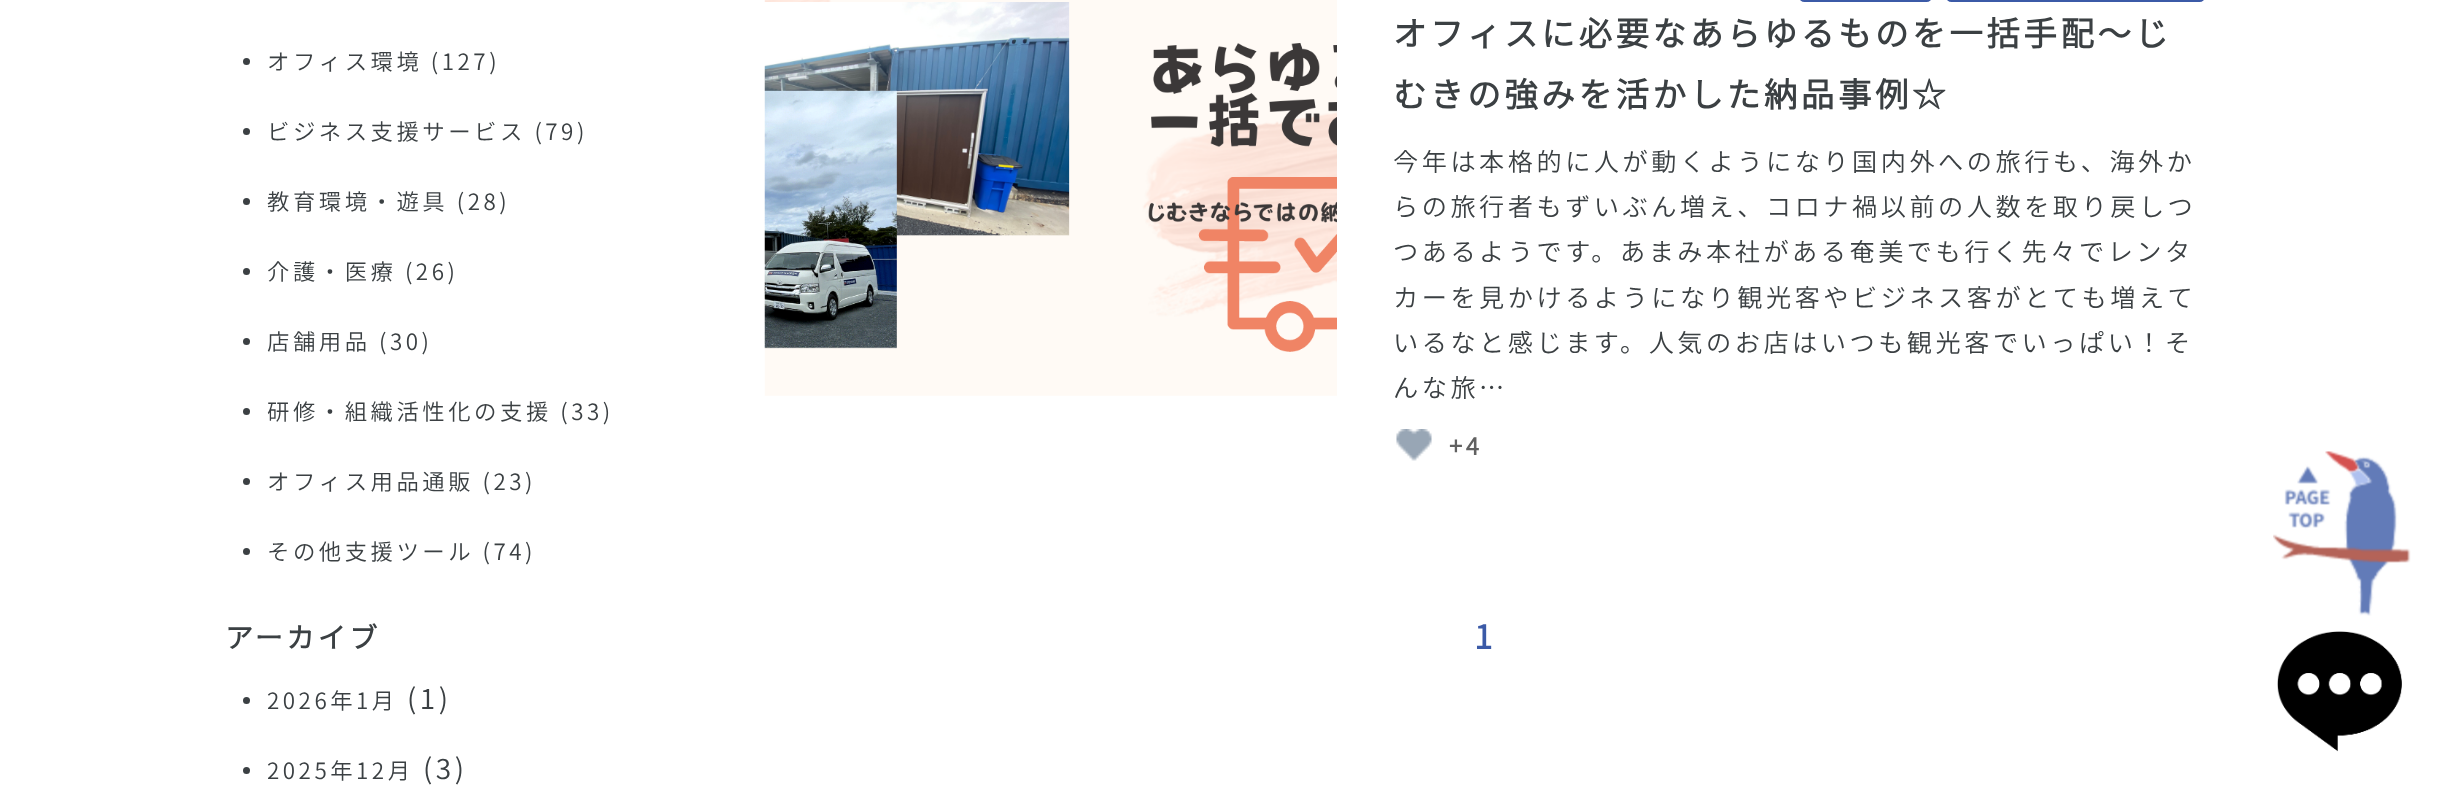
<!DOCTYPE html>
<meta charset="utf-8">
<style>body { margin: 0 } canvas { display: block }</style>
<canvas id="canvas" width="2444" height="791"></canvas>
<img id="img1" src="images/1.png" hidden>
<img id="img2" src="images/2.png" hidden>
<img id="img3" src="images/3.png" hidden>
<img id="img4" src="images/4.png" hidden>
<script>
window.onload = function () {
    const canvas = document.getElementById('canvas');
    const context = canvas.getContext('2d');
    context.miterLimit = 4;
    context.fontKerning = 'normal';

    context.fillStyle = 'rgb(255, 255, 255)';
    context.fillRect(0, 0, 2444, 791);
    context.fillStyle = 'rgb(59, 64, 67)';
    context.beginPath();
    context.arc(246.5, 61.5, 3.5, 0, 2 * Math.PI);
    context.fill();
    context.beginPath();
    context.arc(246.5, 131.5, 3.5, 0, 2 * Math.PI);
    context.fill();
    context.beginPath();
    context.arc(246.5, 201.5, 3.5, 0, 2 * Math.PI);
    context.fill();
    context.beginPath();
    context.arc(246.5, 271.5, 3.5, 0, 2 * Math.PI);
    context.fill();
    context.beginPath();
    context.arc(246.5, 341.5, 3.5, 0, 2 * Math.PI);
    context.fill();
    context.beginPath();
    context.arc(246.5, 411.5, 3.5, 0, 2 * Math.PI);
    context.fill();
    context.beginPath();
    context.arc(246.5, 481.5, 3.5, 0, 2 * Math.PI);
    context.fill();
    context.beginPath();
    context.arc(246.5, 551.5, 3.5, 0, 2 * Math.PI);
    context.fill();
    context.beginPath();
    context.arc(246.5, 700.5, 3.5, 0, 2 * Math.PI);
    context.fill();
    context.beginPath();
    context.arc(246.5, 770.5, 3.5, 0, 2 * Math.PI);
    context.fill();
    context.drawImage(document.getElementById('img1'), 764, 0, 573, 396);
    context.fillStyle = 'rgb(59, 90, 167)';
    context.beginPath();
    context.roundRect(1799, -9, 133, 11, 9);
    context.fill();
    context.beginPath();
    context.roundRect(1946, -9, 259, 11, 9);
    context.fill();
    context.drawImage(document.getElementById('img2'), 1396, 429, 36, 32);
    context.drawImage(document.getElementById('img3'), 2273, 451, 138, 165);
    context.drawImage(document.getElementById('img4'), 2277, 631, 125, 121);
    context.letterSpacing = '3.5px';
    context.font = '300 22.4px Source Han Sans';
    context.fillStyle = 'rgb(59, 64, 67)';
    context.fillText('オフィス環境 (127)', 267, 70);
    context.fillText('ビジネス支援サービス (79)', 267, 140);
    context.fillText('教育環境・遊具 (28)', 267, 210);
    context.fillText('介護・医療 (26)', 267, 280);
    context.fillText('店舗用品 (30)', 267, 350);
    context.fillText('研修・組織活性化の支援 (33)', 267, 420);
    context.fillText('オフィス用品通販 (23)', 267, 490);
    context.fillText('その他支援ツール (74)', 267, 560);
    context.font = 'bold 28px Source Han Sans';
    context.fillText('アーカイブ', 225, 648);
    context.font = '300 22.4px Source Han Sans';
    context.fillText('2026年1月', 267, 709);
    context.font = '300 28px Source Han Sans';
    context.fillText('(1)', 407, 709);
    context.font = '300 22.4px Source Han Sans';
    context.fillText('2025年12月', 267, 779);
    context.font = '300 28px Source Han Sans';
    context.fillText('(3)', 423, 779);
    context.font = 'bold 33.6px Source Han Sans';
    context.fillText('オフィスに必要なあらゆるものを一括手配～じ', 1393, 46);
    context.fillText('むきの強みを活かした納品事例☆', 1393, 107);
    context.font = '300 25.2px Source Han Sans';
    context.fillText('今年は本格的に人が動くようになり国内外への旅行も、海外か', 1393, 171);
    context.fillText('らの旅行者もずいぶん増え、コロナ禍以前の人数を取り戻しつ', 1393, 216);
    context.fillText('つあるようです。あまみ本社がある奄美でも行く先々でレンタ', 1393, 261);
    context.fillText('カーを見かけるようになり観光客やビジネス客がとても増えて', 1393, 307);
    context.fillText('いるなと感じます。人気のお店はいつも観光客でいっぱい！そ', 1393, 352);
    context.fillText('んな旅…', 1393, 397);
    context.font = 'bold 24px Source Han Sans';
    context.fillStyle = 'rgb(97, 97, 97)';
    context.fillText('+4', 1449, 455);
    context.font = 'bold 33.6px Source Han Sans';
    context.fillStyle = 'rgb(59, 90, 167)';
    context.fillText('1', 1474, 649);
};
</script>
